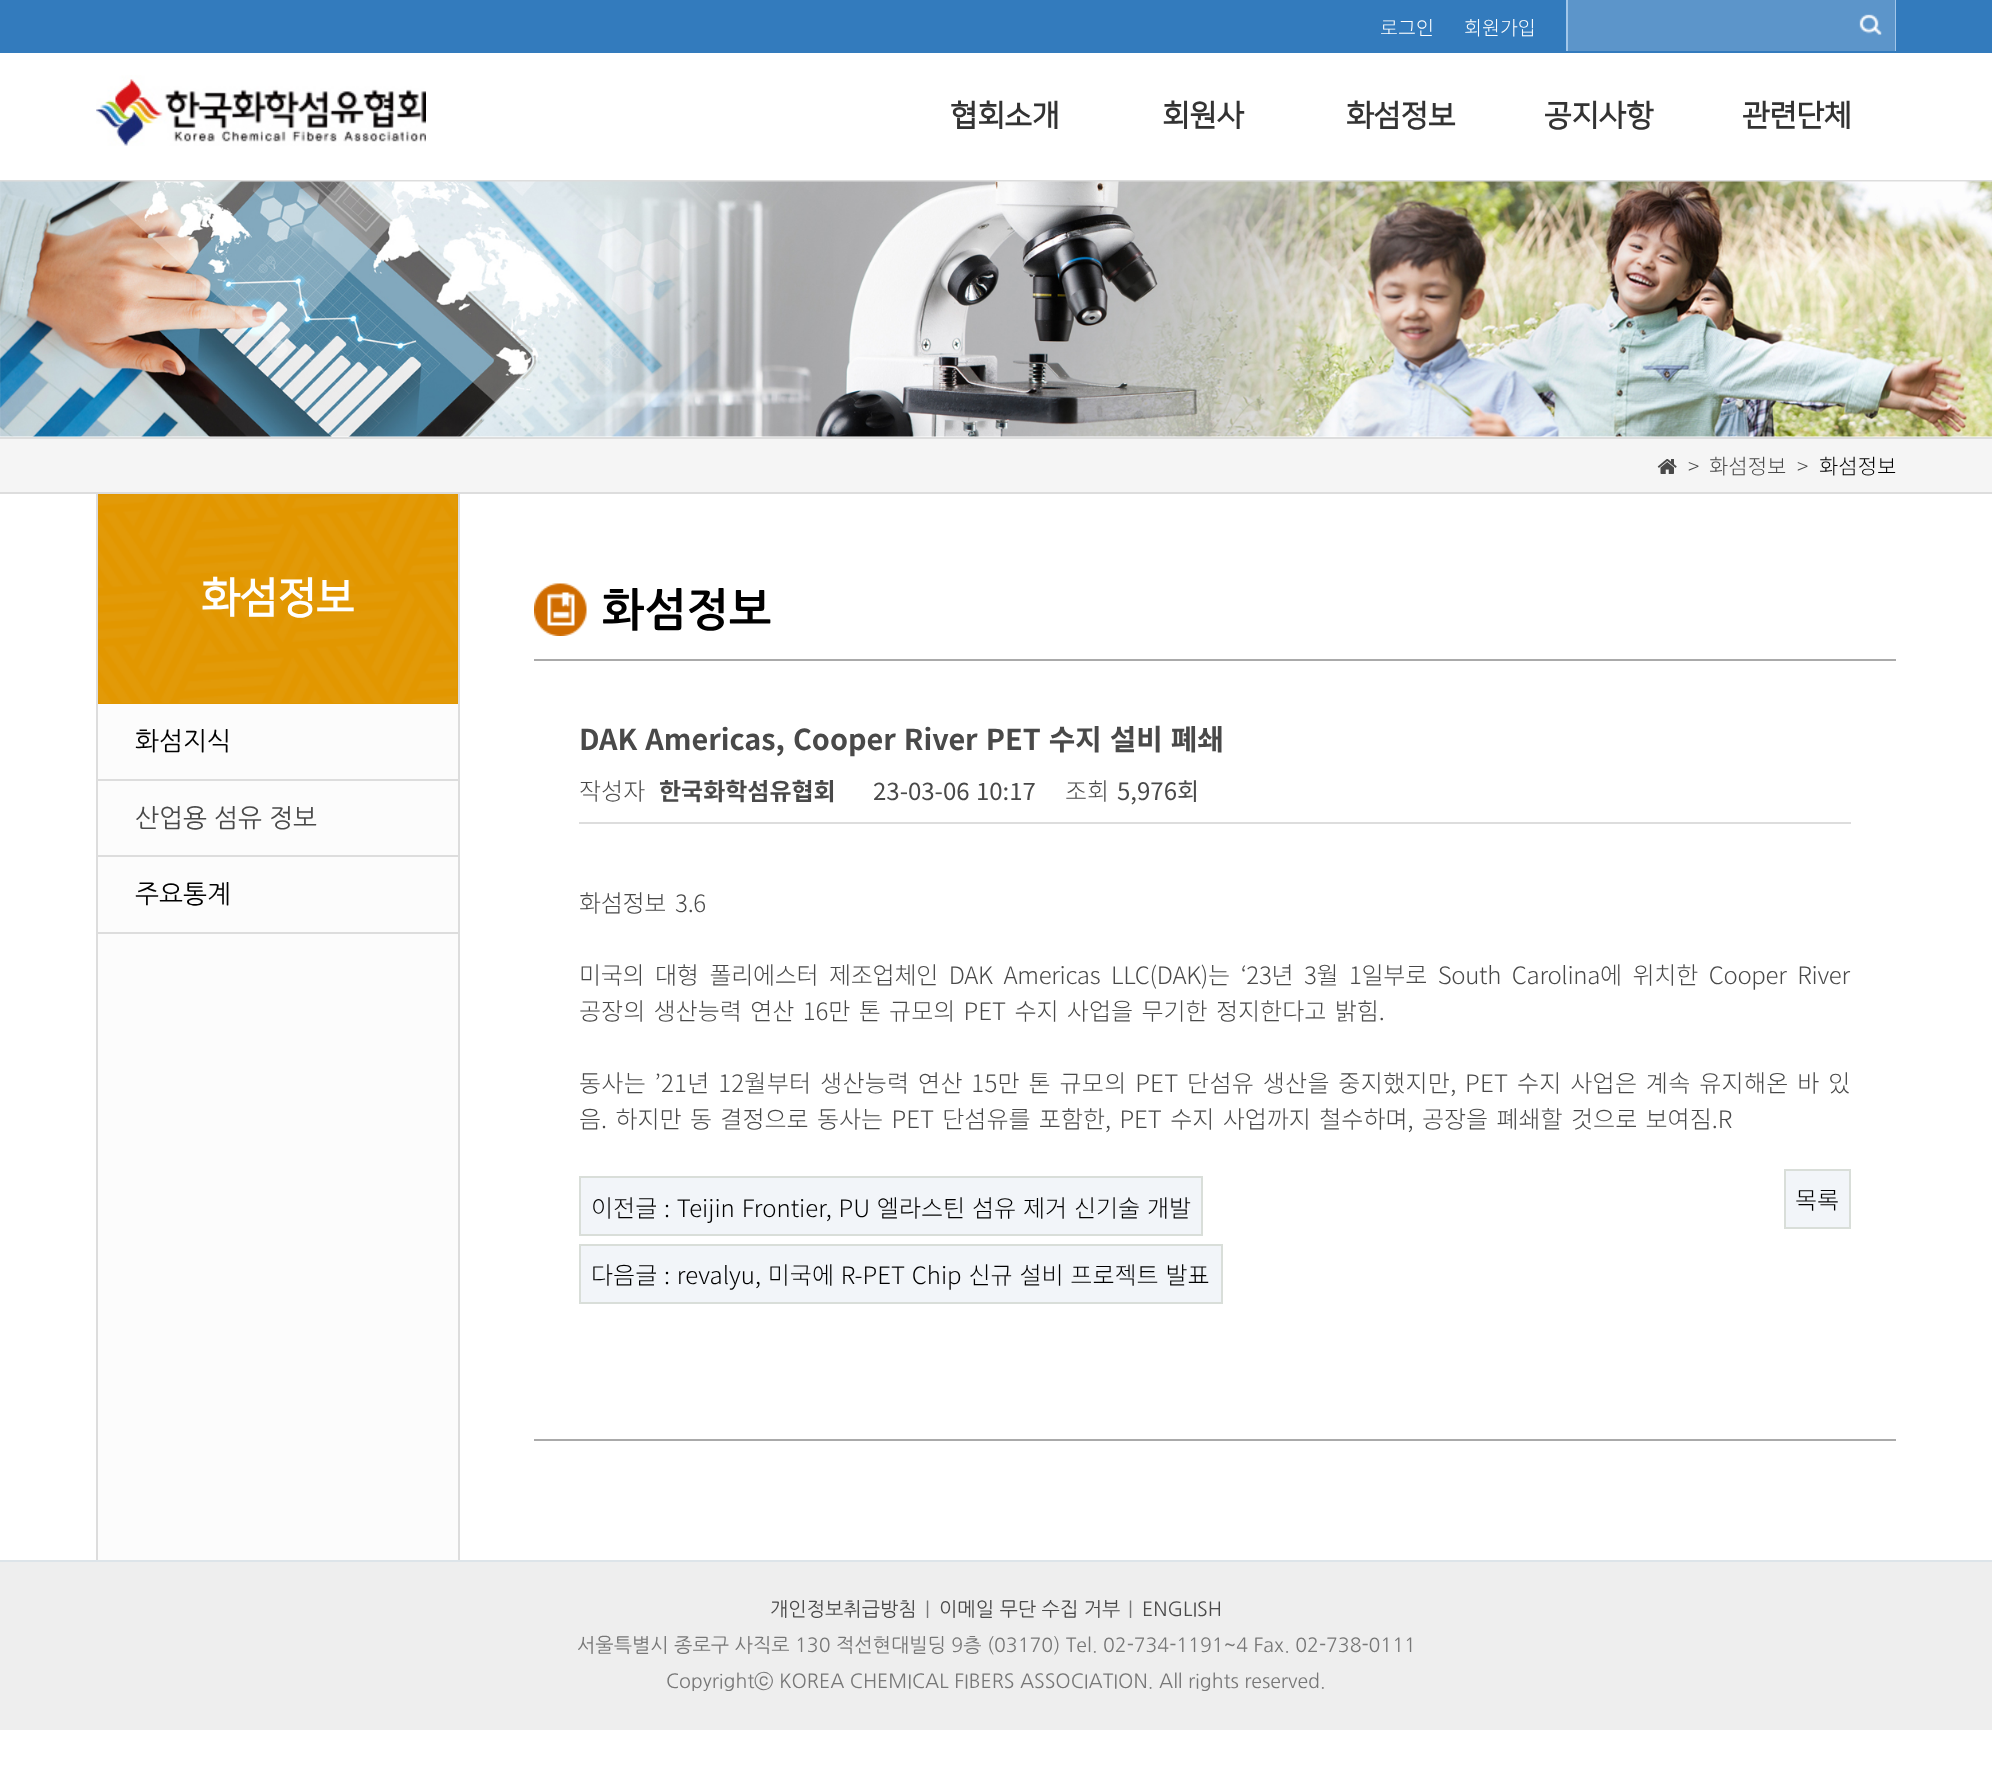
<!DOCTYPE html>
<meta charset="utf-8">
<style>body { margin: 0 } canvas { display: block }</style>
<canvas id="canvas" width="1992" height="1770"></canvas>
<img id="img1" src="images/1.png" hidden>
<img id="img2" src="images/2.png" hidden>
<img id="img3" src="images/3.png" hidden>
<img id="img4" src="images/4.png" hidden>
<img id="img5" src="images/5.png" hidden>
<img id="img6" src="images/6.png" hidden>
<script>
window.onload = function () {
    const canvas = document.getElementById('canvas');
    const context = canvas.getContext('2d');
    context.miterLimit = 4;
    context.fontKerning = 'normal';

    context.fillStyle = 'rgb(255, 255, 255)';
    context.fillRect(0, 0, 1992, 1770);
    context.fillStyle = 'rgb(221, 221, 221)';
    context.fillRect(0, 180, 1992, 2);
    context.fillStyle = 'rgb(51, 123, 189)';
    context.fillRect(0, 0, 1992, 53);
    context.fillStyle = 'rgb(92, 149, 202)';
    context.fillRect(1568, 0, 327, 51);
    context.fillStyle = 'rgb(161, 198, 233)';
    context.fillRect(1895, 0, 1, 51);
    context.fillRect(1566, 0, 2, 51);
    context.drawImage(document.getElementById('img1'), 1859, 14, 23, 21);
    context.drawImage(document.getElementById('img2'), 96, 75, 330, 71);
    context.drawImage(document.getElementById('img3'), 0, 181, 1992, 256);
    context.fillStyle = 'rgb(245, 245, 245)';
    context.fillRect(0, 439, 1992, 53);
    context.fillStyle = 'rgb(221, 221, 221)';
    context.fillRect(0, 437, 1992, 2);
    context.fillRect(0, 492, 1992, 2);
    context.drawImage(document.getElementById('img4'), 1657, 459, 20, 15);
    context.fillStyle = 'rgb(252, 252, 252)';
    context.fillRect(98, 704, 360, 856);
    context.fillStyle = 'rgb(221, 221, 221)';
    context.fillRect(96, 494, 2, 1066);
    context.fillStyle = 'rgb(226, 151, 0)';
    context.fillRect(98, 494, 360, 210);
    context.drawImage(document.getElementById('img5'), 98, 494, 359, 209);
    context.fillStyle = 'rgb(221, 221, 221)';
    context.fillRect(98, 779, 360, 2);
    context.fillRect(98, 855, 360, 2);
    context.fillRect(98, 932, 360, 2);
    context.fillRect(458, 494, 2, 1066);
    context.drawImage(document.getElementById('img6'), 534, 583, 53, 53);
    context.fillStyle = 'rgb(170, 170, 170)';
    context.fillRect(534, 659, 1362, 2);
    context.fillRect(534, 1439, 1362, 2);
    context.fillStyle = 'rgb(221, 221, 221)';
    context.fillRect(579, 822, 1272, 2);
    context.fillStyle = 'rgb(242, 245, 249)';
    context.beginPath();
    context.rect(580, 1177, 622, 58);
    context.fill();
    context.strokeStyle = 'rgb(217, 222, 217)';
    context.lineWidth = 2;
    context.stroke();
    context.beginPath();
    context.rect(580, 1245, 642, 58);
    context.fill();
    context.stroke();
    context.beginPath();
    context.rect(1785, 1170, 65, 58);
    context.fill();
    context.stroke();
    context.fillStyle = 'rgb(221, 228, 233)';
    context.fillRect(0, 1560, 1992, 2);
    context.fillStyle = 'rgb(238, 238, 238)';
    context.fillRect(0, 1562, 1992, 168);
    context.font = '300 19.5px Noto Sans KR';
    context.fillStyle = 'rgb(255, 255, 255)';
    context.fillText('로그인', 1380, 35);
    context.fillText('회원가입', 1464, 35);
    context.font = 'bold 30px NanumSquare';
    context.fillStyle = 'rgb(51, 51, 51)';
    context.fillText('협회소개', 950, 125);
    context.fillText('회원사', 1162, 125);
    context.fillText('화섬정보', 1346, 125);
    context.fillText('공지사항', 1544, 125);
    context.fillText('관련단체', 1742, 125);
    context.font = '300 21px Noto Sans KR';
    context.fillStyle = 'rgb(73, 73, 73)';
    context.fillText('>', 1688, 474);
    context.fillText('화섬정보', 1709, 474);
    context.fillText('>', 1797, 474);
    context.fillStyle = 'rgb(0, 0, 0)';
    context.fillText('화섬정보', 1819, 474);
    context.font = 'bold 42px NanumSquare';
    context.fillStyle = 'rgb(255, 255, 255)';
    context.fillText('화섬정보', 201, 611);
    context.font = '25.5px NanumGothic';
    context.fillStyle = 'rgb(0, 0, 0)';
    context.fillText('화섬지식', 135, 750);
    context.fillStyle = 'rgb(73, 73, 73)';
    context.fillText('산업용 섬유 정보', 135, 827);
    context.fillStyle = 'rgb(0, 0, 0)';
    context.fillText('주요통계', 135, 903);
    context.font = 'bold 45px NanumGothic';
    context.fillText('화섬정보', 602, 626);
    context.wordSpacing = '1.5px';
    context.font = 'bold 28.8px Noto Sans KR';
    context.fillStyle = 'rgb(73, 73, 73)';
    context.fillText('DAK Americas, Cooper River PET 수지 설비 폐쇄', 579, 750);
    context.wordSpacing = '0px';
    context.font = '300 24px Noto Sans KR';
    context.fillText('작성자', 579, 800);
    context.font = 'bold 24px Noto Sans KR';
    context.fillText('한국화학섬유협회', 659, 800);
    context.wordSpacing = '1px';
    context.font = '24px Noto Sans KR';
    context.fillText('23-03-06 10:17', 873, 800);
    context.wordSpacing = '0px';
    context.font = '300 24px Noto Sans KR';
    context.fillText('조회', 1065, 800);
    context.font = '24px Noto Sans KR';
    context.fillText('5,976회', 1117, 800);
    context.letterSpacing = '-0.3px';
    context.wordSpacing = '4px';
    context.font = '300 24px Noto Sans KR';
    context.fillText('화섬정보 3.6', 579, 912);
    context.wordSpacing = '5.75px';
    context.fillText('미국의 대형 폴리에스터 제조업체인 DAK Americas LLC(DAK)는 ‘23년 3월 1일부로 South Carolina에 위치한 Cooper River', 579, 984);
    context.letterSpacing = '0px';
    context.wordSpacing = '3px';
    context.fillText('공장의 생산능력 연산 16만 톤 규모의 PET 수지 사업을 무기한 정지한다고 밝힘.', 579, 1020);
    context.letterSpacing = '0.28px';
    context.fillText('동사는 ’21년 12월부터 생산능력 연산 15만 톤 규모의 PET 단섬유 생산을 중지했지만, PET 수지 사업은 계속 유지해온 바 있', 579, 1092);
    context.letterSpacing = '0px';
    context.fillText('음. 하지만 동 결정으로 동사는 PET 단섬유를 포함한, PET 수지 사업까지 철수하며, 공장을 폐쇄할 것으로 보여짐.R', 579, 1128);
    context.wordSpacing = '1.5px';
    context.fillStyle = 'rgb(0, 0, 0)';
    context.fillText('이전글 : Teijin Frontier, PU 엘라스틴 섬유 제거 신기술 개발', 591, 1217);
    context.fillText('다음글 : revalyu, 미국에 R-PET Chip 신규 설비 프로젝트 발표', 591, 1284);
    context.wordSpacing = '0px';
    context.fillText('목록', 1795, 1209);
    context.font = '19.5px "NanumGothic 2"';
    context.fillStyle = 'rgb(73, 73, 73)';
    context.fillText('개인정보취급방침', 770, 1616);
    context.fillStyle = 'rgb(119, 119, 119)';
    context.fillText('|', 925, 1616);
    context.fillStyle = 'rgb(73, 73, 73)';
    context.fillText('이메일 무단 수집 거부', 939, 1616);
    context.fillStyle = 'rgb(119, 119, 119)';
    context.fillText('|', 1128, 1616);
    context.fillStyle = 'rgb(73, 73, 73)';
    context.fillText('ENGLISH', 1142, 1616);
    context.fillStyle = 'rgb(119, 119, 119)';
    context.fillText('서울특별시 종로구 사직로 130 적선현대빌딩 9층 (03170) Tel. 02-734-1191~4 Fax. 02-738-0111', 577, 1652);
    context.fillText('Copyright', 666, 1688);
    context.font = '500 19.5px WenQuanYi Zen Hei';
    context.fillText('ⓒ', 754, 1688);
    context.font = '19.5px "NanumGothic 2"';
    context.fillText('KOREA CHEMICAL FIBERS ASSOCIATION. All rights reserved.', 779, 1688);
};
</script>
